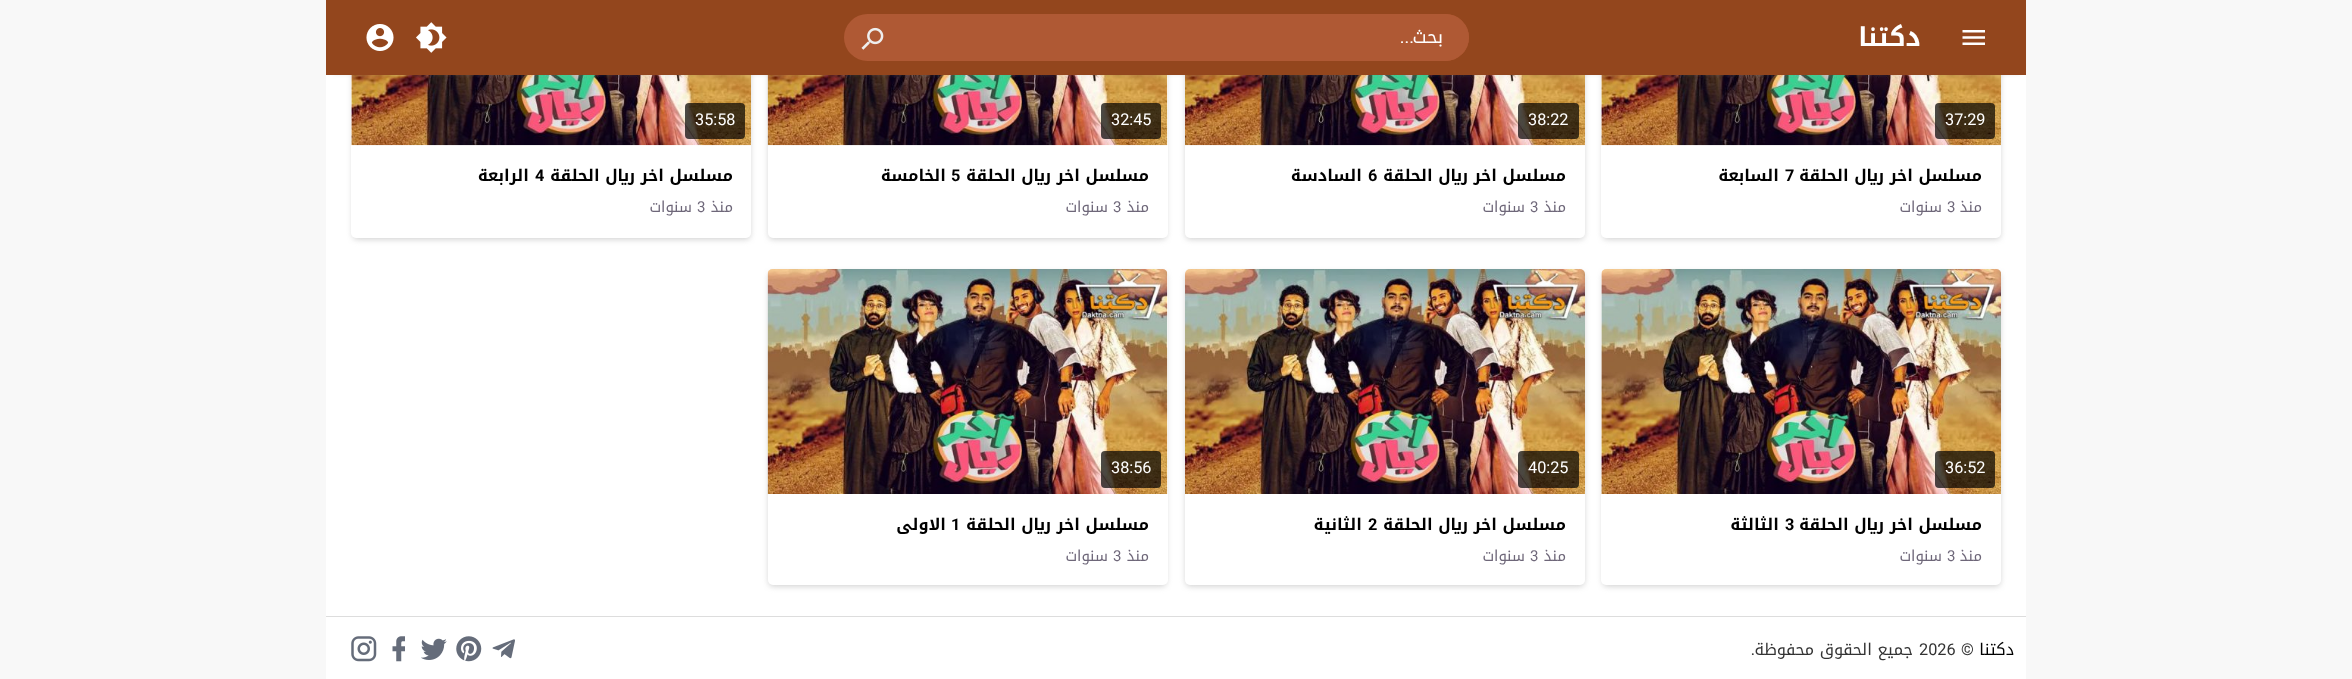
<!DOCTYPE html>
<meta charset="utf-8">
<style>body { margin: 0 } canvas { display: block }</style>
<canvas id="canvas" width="2352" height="679"></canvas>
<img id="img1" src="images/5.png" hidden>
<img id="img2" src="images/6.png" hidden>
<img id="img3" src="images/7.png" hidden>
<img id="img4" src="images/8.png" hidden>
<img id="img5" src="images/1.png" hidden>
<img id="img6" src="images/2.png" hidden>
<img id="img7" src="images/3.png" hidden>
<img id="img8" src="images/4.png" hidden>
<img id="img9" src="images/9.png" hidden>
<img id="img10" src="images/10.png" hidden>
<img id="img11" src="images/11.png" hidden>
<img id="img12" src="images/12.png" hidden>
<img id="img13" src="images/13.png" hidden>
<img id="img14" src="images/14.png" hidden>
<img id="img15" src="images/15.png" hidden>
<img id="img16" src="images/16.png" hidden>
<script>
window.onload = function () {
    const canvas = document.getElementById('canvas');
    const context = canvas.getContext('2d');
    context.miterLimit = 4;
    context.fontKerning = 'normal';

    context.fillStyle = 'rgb(248, 248, 248)';
    context.fillRect(0, 0, 2352, 679);
    context.fillStyle = 'rgb(255, 255, 255)';
    context.fillRect(326, 75, 1700, 541);
    context.fillStyle = 'rgb(204, 204, 204)';
    context.filter = 'blur(3px)';
    context.beginPath();
    context.roundRect(1603, -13, 397, 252, 4);
    context.fill();
    context.filter = 'none';
    context.fillStyle = 'rgb(255, 255, 255)';
    context.beginPath();
    context.roundRect(1601, -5, 400, 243, 5);
    context.fill();
    context.drawImage(document.getElementById('img1'), 1601, 75, 400, 71);
    context.fillStyle = 'rgb(204, 204, 204)';
    context.filter = 'blur(3px)';
    context.beginPath();
    context.roundRect(1186, -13, 398, 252, 4);
    context.fill();
    context.filter = 'none';
    context.fillStyle = 'rgb(255, 255, 255)';
    context.beginPath();
    context.roundRect(1185, -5, 400, 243, 5);
    context.fill();
    context.drawImage(document.getElementById('img2'), 1185, 75, 400, 71);
    context.fillStyle = 'rgb(204, 204, 204)';
    context.filter = 'blur(3px)';
    context.beginPath();
    context.roundRect(769, -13, 397, 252, 4);
    context.fill();
    context.filter = 'none';
    context.fillStyle = 'rgb(255, 255, 255)';
    context.beginPath();
    context.roundRect(768, -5, 400, 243, 5);
    context.fill();
    context.drawImage(document.getElementById('img3'), 767, 75, 401, 71);
    context.fillStyle = 'rgb(204, 204, 204)';
    context.filter = 'blur(3px)';
    context.beginPath();
    context.roundRect(353, -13, 397, 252, 4);
    context.fill();
    context.filter = 'none';
    context.fillStyle = 'rgb(255, 255, 255)';
    context.beginPath();
    context.roundRect(351, -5, 400, 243, 5);
    context.fill();
    context.drawImage(document.getElementById('img4'), 351, 75, 400, 71);
    context.fillStyle = 'rgb(153, 153, 153)';
    context.filter = 'blur(3px)';
    context.beginPath();
    context.rect(333, 9, 1687, 62);
    context.fill();
    context.filter = 'none';
    context.fillStyle = 'rgb(147, 70, 29)';
    context.fillRect(326, 0, 1700, 75);
    context.drawImage(document.getElementById('img5'), 1962, 30, 23, 15);
    context.fillStyle = 'rgb(175, 89, 52)';
    context.beginPath();
    context.roundRect(844, 14, 625, 47, 23.5);
    context.fill();
    context.beginPath();
    context.roundRect(906, 14, 563, 47, [0, 23.5, 23.5, 0]);
    context.fill();
    context.drawImage(document.getElementById('img6'), 861, 27, 23, 23);
    context.drawImage(document.getElementById('img7'), 416, 22, 31, 31);
    context.drawImage(document.getElementById('img8'), 366, 24, 28, 27);
    context.fillStyle = 'rgba(0, 0, 0, 0.7)';
    context.beginPath();
    context.roundRect(1935, 103, 60, 36, 4);
    context.fill();
    context.beginPath();
    context.roundRect(1518, 103, 61, 36, 4);
    context.fill();
    context.beginPath();
    context.roundRect(1101, 103, 60, 36, 4);
    context.fill();
    context.beginPath();
    context.roundRect(685, 103, 60, 36, 4);
    context.fill();
    context.fillStyle = 'rgb(204, 204, 204)';
    context.filter = 'blur(3px)';
    context.beginPath();
    context.roundRect(1603, 273, 397, 313, 4);
    context.fill();
    context.filter = 'none';
    context.fillStyle = 'rgb(255, 255, 255)';
    context.beginPath();
    context.roundRect(1601, 269, 400, 316, 5);
    context.fill();
    context.drawImage(document.getElementById('img9'), 1601, 269, 400, 225);
    context.fillStyle = 'rgba(0, 0, 0, 0.7)';
    context.beginPath();
    context.roundRect(1935, 451, 60, 37, 4);
    context.fill();
    context.fillStyle = 'rgb(204, 204, 204)';
    context.filter = 'blur(3px)';
    context.beginPath();
    context.roundRect(1186, 273, 398, 313, 4);
    context.fill();
    context.filter = 'none';
    context.fillStyle = 'rgb(255, 255, 255)';
    context.beginPath();
    context.roundRect(1185, 269, 400, 316, 5);
    context.fill();
    context.drawImage(document.getElementById('img10'), 1185, 269, 400, 225);
    context.fillStyle = 'rgba(0, 0, 0, 0.7)';
    context.beginPath();
    context.roundRect(1518, 451, 61, 37, 4);
    context.fill();
    context.fillStyle = 'rgb(204, 204, 204)';
    context.filter = 'blur(3px)';
    context.beginPath();
    context.roundRect(769, 273, 397, 313, 4);
    context.fill();
    context.filter = 'none';
    context.fillStyle = 'rgb(255, 255, 255)';
    context.beginPath();
    context.roundRect(768, 269, 400, 316, 5);
    context.fill();
    context.drawImage(document.getElementById('img11'), 767, 269, 401, 225);
    context.fillStyle = 'rgba(0, 0, 0, 0.7)';
    context.beginPath();
    context.roundRect(1101, 451, 60, 37, 4);
    context.fill();
    context.fillStyle = 'rgb(255, 255, 255)';
    context.fillRect(326, 617, 1700, 62);
    context.fillStyle = 'rgb(221, 221, 221)';
    context.fillRect(326, 616, 1700, 1);
    context.drawImage(document.getElementById('img12'), 492, 639, 23, 20);
    context.drawImage(document.getElementById('img13'), 456, 636, 26, 26);
    context.drawImage(document.getElementById('img14'), 421, 638, 26, 22);
    context.drawImage(document.getElementById('img15'), 392, 636, 13, 26);
    context.drawImage(document.getElementById('img16'), 351, 636, 26, 26);
    context.direction = 'rtl';
    context.font = 'bold 26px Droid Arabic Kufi';
    context.fillStyle = 'rgb(255, 255, 255)';
    context.fillText('دكتنا', 1921, 46);
    context.font = '18px Droid Arabic Kufi';
    context.fillText('بحث', 1443, 43);
    context.font = '18px Roboto';
    context.fillText('...', 1414, 43);
    context.direction = 'ltr';
    context.font = '16.25px Roboto';
    context.fillText('37:29', 1945, 125);
    context.direction = 'rtl';
    context.font = 'bold 16.25px Droid Arabic Kufi';
    context.fillStyle = 'rgb(0, 0, 0)';
    context.fillText('مسلسل اخر ريال الحلقة', 1982, 181);
    context.direction = 'ltr';
    context.font = 'bold 16.25px Roboto';
    context.fillText('7', 1785, 181);
    context.direction = 'rtl';
    context.font = 'bold 16.25px Droid Arabic Kufi';
    context.fillText('السابعة', 1779, 181);
    context.font = '15px Droid Arabic Kufi';
    context.fillStyle = 'rgb(110, 103, 121)';
    context.fillText('منذ', 1982, 212);
    context.direction = 'ltr';
    context.font = '15px Roboto';
    context.fillText('3', 1947, 212);
    context.direction = 'rtl';
    context.font = '15px Droid Arabic Kufi';
    context.fillText('سنوات', 1942, 212);
    context.direction = 'ltr';
    context.font = '16.25px Roboto';
    context.fillStyle = 'rgb(255, 255, 255)';
    context.fillText('38:22', 1528, 125);
    context.direction = 'rtl';
    context.font = 'bold 16.25px Droid Arabic Kufi';
    context.fillStyle = 'rgb(0, 0, 0)';
    context.fillText('مسلسل اخر ريال الحلقة', 1566, 181);
    context.direction = 'ltr';
    context.font = 'bold 16.25px Roboto';
    context.fillText('6', 1368, 181);
    context.direction = 'rtl';
    context.font = 'bold 16.25px Droid Arabic Kufi';
    context.fillText('السادسة', 1362, 181);
    context.font = '15px Droid Arabic Kufi';
    context.fillStyle = 'rgb(110, 103, 121)';
    context.fillText('منذ', 1566, 212);
    context.direction = 'ltr';
    context.font = '15px Roboto';
    context.fillText('3', 1530, 212);
    context.direction = 'rtl';
    context.font = '15px Droid Arabic Kufi';
    context.fillText('سنوات', 1525, 212);
    context.direction = 'ltr';
    context.font = '16.25px Roboto';
    context.fillStyle = 'rgb(255, 255, 255)';
    context.fillText('32:45', 1111, 125);
    context.direction = 'rtl';
    context.font = 'bold 16.25px Droid Arabic Kufi';
    context.fillStyle = 'rgb(0, 0, 0)';
    context.fillText('مسلسل اخر ريال الحلقة', 1149, 181);
    context.direction = 'ltr';
    context.font = 'bold 16.25px Roboto';
    context.fillText('5', 951, 181);
    context.direction = 'rtl';
    context.font = 'bold 16.25px Droid Arabic Kufi';
    context.fillText('الخامسة', 946, 181);
    context.font = '15px Droid Arabic Kufi';
    context.fillStyle = 'rgb(110, 103, 121)';
    context.fillText('منذ', 1149, 212);
    context.direction = 'ltr';
    context.font = '15px Roboto';
    context.fillText('3', 1113, 212);
    context.direction = 'rtl';
    context.font = '15px Droid Arabic Kufi';
    context.fillText('سنوات', 1108, 212);
    context.direction = 'ltr';
    context.font = '16.25px Roboto';
    context.fillStyle = 'rgb(255, 255, 255)';
    context.fillText('35:58', 695, 125);
    context.direction = 'rtl';
    context.font = 'bold 16.25px Droid Arabic Kufi';
    context.fillStyle = 'rgb(0, 0, 0)';
    context.fillText('مسلسل اخر ريال الحلقة', 733, 181);
    context.direction = 'ltr';
    context.font = 'bold 16.25px Roboto';
    context.fillText('4', 535, 181);
    context.direction = 'rtl';
    context.font = 'bold 16.25px Droid Arabic Kufi';
    context.fillText('الرابعة', 529, 181);
    context.font = '15px Droid Arabic Kufi';
    context.fillStyle = 'rgb(110, 103, 121)';
    context.fillText('منذ', 733, 212);
    context.direction = 'ltr';
    context.font = '15px Roboto';
    context.fillText('3', 697, 212);
    context.direction = 'rtl';
    context.font = '15px Droid Arabic Kufi';
    context.fillText('سنوات', 692, 212);
    context.direction = 'ltr';
    context.font = '16.25px Roboto';
    context.fillStyle = 'rgb(255, 255, 255)';
    context.fillText('36:52', 1945, 473);
    context.direction = 'rtl';
    context.font = 'bold 16.25px Droid Arabic Kufi';
    context.fillStyle = 'rgb(0, 0, 0)';
    context.fillText('مسلسل اخر ريال الحلقة', 1982, 530);
    context.direction = 'ltr';
    context.font = 'bold 16.25px Roboto';
    context.fillText('3', 1785, 530);
    context.direction = 'rtl';
    context.font = 'bold 16.25px Droid Arabic Kufi';
    context.fillText('الثالثة', 1779, 530);
    context.font = '15px Droid Arabic Kufi';
    context.fillStyle = 'rgb(110, 103, 121)';
    context.fillText('منذ', 1982, 561);
    context.direction = 'ltr';
    context.font = '15px Roboto';
    context.fillText('3', 1947, 561);
    context.direction = 'rtl';
    context.font = '15px Droid Arabic Kufi';
    context.fillText('سنوات', 1942, 561);
    context.direction = 'ltr';
    context.font = '16.25px Roboto';
    context.fillStyle = 'rgb(255, 255, 255)';
    context.fillText('40:25', 1528, 473);
    context.direction = 'rtl';
    context.font = 'bold 16.25px Droid Arabic Kufi';
    context.fillStyle = 'rgb(0, 0, 0)';
    context.fillText('مسلسل اخر ريال الحلقة', 1566, 530);
    context.direction = 'ltr';
    context.font = 'bold 16.25px Roboto';
    context.fillText('2', 1368, 530);
    context.direction = 'rtl';
    context.font = 'bold 16.25px Droid Arabic Kufi';
    context.fillText('الثانية', 1362, 530);
    context.font = '15px Droid Arabic Kufi';
    context.fillStyle = 'rgb(110, 103, 121)';
    context.fillText('منذ', 1566, 561);
    context.direction = 'ltr';
    context.font = '15px Roboto';
    context.fillText('3', 1530, 561);
    context.direction = 'rtl';
    context.font = '15px Droid Arabic Kufi';
    context.fillText('سنوات', 1525, 561);
    context.direction = 'ltr';
    context.font = '16.25px Roboto';
    context.fillStyle = 'rgb(255, 255, 255)';
    context.fillText('38:56', 1111, 473);
    context.direction = 'rtl';
    context.font = 'bold 16.25px Droid Arabic Kufi';
    context.fillStyle = 'rgb(0, 0, 0)';
    context.fillText('مسلسل اخر ريال الحلقة', 1149, 530);
    context.direction = 'ltr';
    context.font = 'bold 16.25px Roboto';
    context.fillText('1', 951, 530);
    context.direction = 'rtl';
    context.font = 'bold 16.25px Droid Arabic Kufi';
    context.fillText('الاولى', 946, 530);
    context.font = '15px Droid Arabic Kufi';
    context.fillStyle = 'rgb(110, 103, 121)';
    context.fillText('منذ', 1149, 561);
    context.direction = 'ltr';
    context.font = '15px Roboto';
    context.fillText('3', 1113, 561);
    context.direction = 'rtl';
    context.font = '15px Droid Arabic Kufi';
    context.fillText('سنوات', 1108, 561);
    context.font = '16.25px Droid Arabic Kufi';
    context.fillStyle = 'rgb(0, 0, 0)';
    context.fillText('دكتنا', 2014, 655);
    context.direction = 'ltr';
    context.font = '16.25px Roboto';
    context.fillStyle = 'rgb(51, 51, 51)';
    context.fillText('©', 1961, 655);
    context.fillText('2026', 1919, 655);
    context.direction = 'rtl';
    context.font = '16.25px Droid Arabic Kufi';
    context.fillText('جميع الحقوق محفوظة', 1913, 655);
    context.font = '16.25px Roboto';
    context.fillText('.', 1755, 655);
};
</script>
